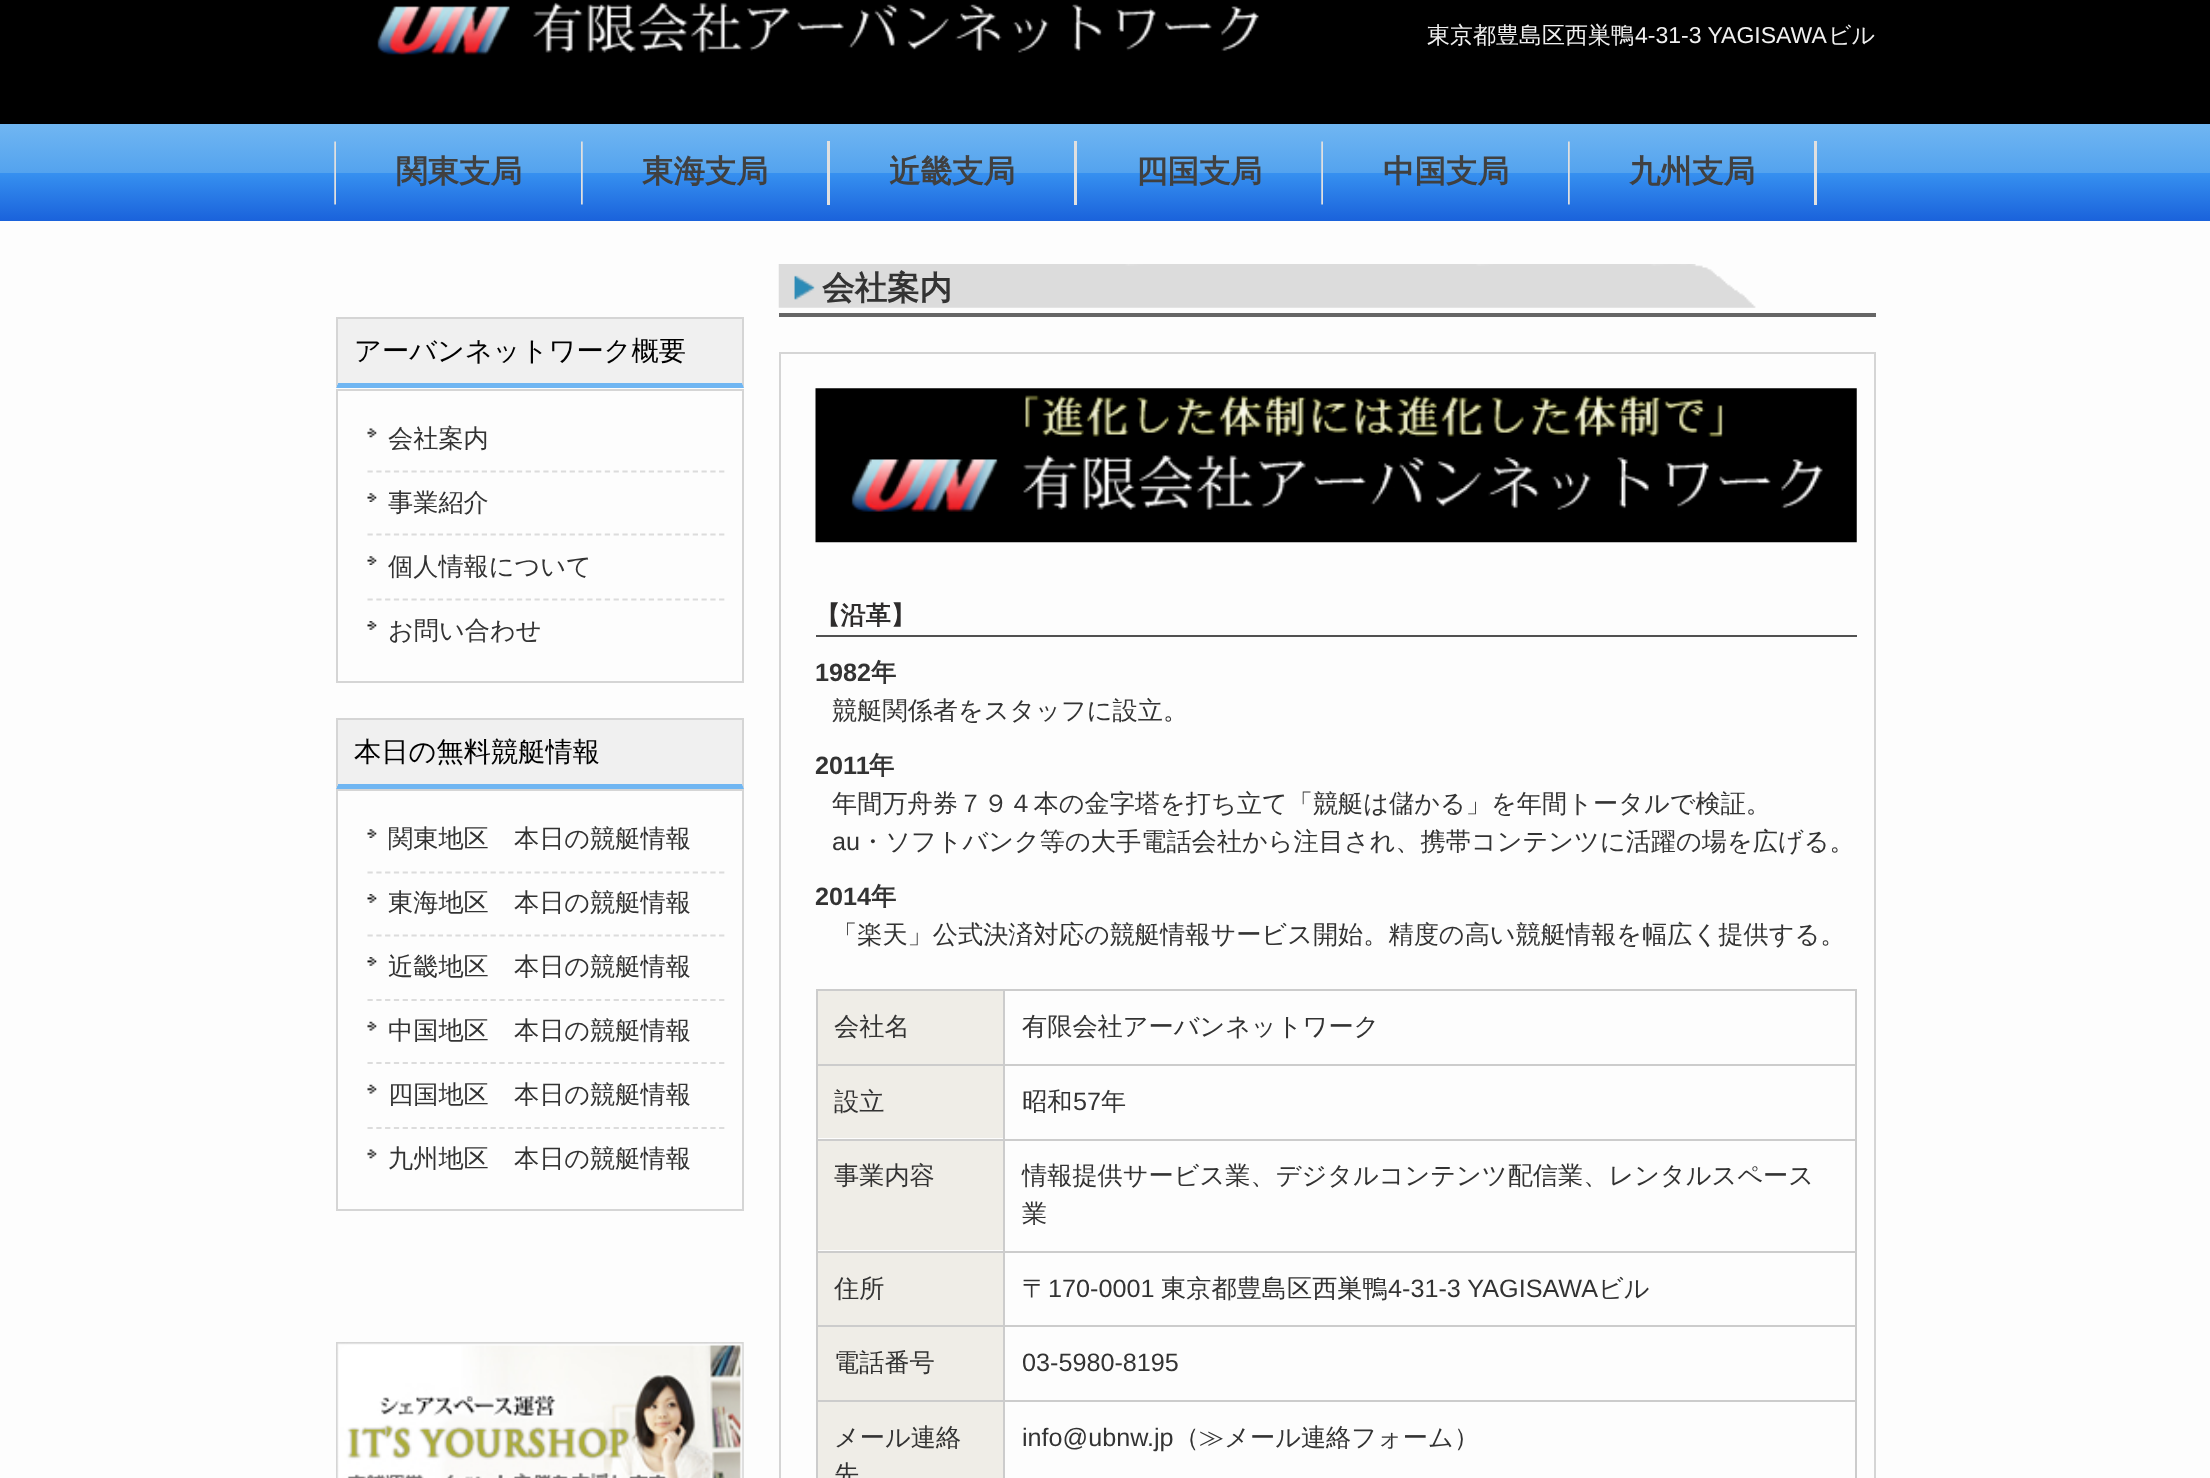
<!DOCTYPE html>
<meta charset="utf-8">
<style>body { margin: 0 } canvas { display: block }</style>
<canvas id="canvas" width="2210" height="1478"></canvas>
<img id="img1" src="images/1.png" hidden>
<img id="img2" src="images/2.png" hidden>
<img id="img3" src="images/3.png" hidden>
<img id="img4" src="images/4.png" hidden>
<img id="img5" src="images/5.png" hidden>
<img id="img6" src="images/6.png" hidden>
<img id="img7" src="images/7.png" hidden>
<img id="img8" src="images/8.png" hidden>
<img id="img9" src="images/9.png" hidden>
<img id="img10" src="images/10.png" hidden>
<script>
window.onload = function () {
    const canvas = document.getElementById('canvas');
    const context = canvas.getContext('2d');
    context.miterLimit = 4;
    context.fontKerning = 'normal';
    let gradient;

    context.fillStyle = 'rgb(253, 253, 253)';
    context.fillRect(0, 0, 2210, 1478);
    context.fillStyle = 'rgb(0, 0, 0)';
    context.fillRect(0, 0, 2210, 124);
    context.drawImage(document.getElementById('img1'), 377, 2, 882, 53);
    gradient = context.createLinearGradient(1105, 124, 1105, 221);
    gradient.addColorStop(0, 'rgb(112, 182, 242)');
    gradient.addColorStop(0.5, 'rgb(84, 163, 238)');
    gradient.addColorStop(0.51, 'rgb(54, 144, 240)');
    gradient.addColorStop(1, 'rgb(26, 98, 219)');
    context.fillStyle = gradient;
    context.fillRect(0, 124, 2210, 97);
    context.drawImage(document.getElementById('img2'), 334, 141, 2, 64);
    context.drawImage(document.getElementById('img3'), 581, 141, 2, 64);
    context.fillStyle = 'rgb(224, 224, 224)';
    context.fillRect(827, 141, 3, 64);
    context.fillRect(1074, 141, 3, 64);
    context.drawImage(document.getElementById('img2'), 1321, 141, 2, 64);
    context.drawImage(document.getElementById('img3'), 1568, 141, 2, 64);
    context.fillRect(1814, 141, 3, 64);
    context.fillStyle = 'rgb(240, 240, 240)';
    context.fillRect(338, 319, 404, 64);
    context.fillStyle = 'rgb(213, 213, 213)';
    context.fillRect(336, 317, 408, 2);
    context.beginPath();
    context.moveTo(744, 317);
    context.lineTo(744, 388);
    context.lineTo(742, 383);
    context.lineTo(742, 318);
    context.closePath();
    context.fill();
    context.fillStyle = 'rgb(112, 182, 242)';
    context.beginPath();
    context.moveTo(744, 388);
    context.lineTo(336, 388);
    context.lineTo(338, 383);
    context.lineTo(742, 383);
    context.closePath();
    context.fill();
    context.fillStyle = 'rgb(213, 213, 213)';
    context.beginPath();
    context.moveTo(336, 388);
    context.lineTo(336, 317);
    context.lineTo(338, 318);
    context.lineTo(338, 383);
    context.closePath();
    context.fill();
    context.strokeStyle = 'rgb(213, 213, 213)';
    context.lineWidth = 2;
    context.strokeRect(337, 390, 406, 292);
    context.drawImage(document.getElementById('img4'), 367, 428, 10, 10);
    context.beginPath();
    context.moveTo(367.5, 471.5);
    context.lineTo(724.5, 471.5);
    context.strokeStyle = 'rgb(220, 220, 220)';
    context.lineWidth = 1.8;
    context.setLineDash([5.25, 3.54]);
    context.stroke();
    context.drawImage(document.getElementById('img5'), 367, 493, 10, 9);
    context.beginPath();
    context.moveTo(367.5, 534.5);
    context.lineTo(724.5, 534.5);
    context.stroke();
    context.drawImage(document.getElementById('img5'), 367, 556, 10, 9);
    context.beginPath();
    context.moveTo(367.5, 599.5);
    context.lineTo(724.5, 599.5);
    context.stroke();
    context.drawImage(document.getElementById('img6'), 367, 621, 10, 9);
    context.fillStyle = 'rgb(240, 240, 240)';
    context.fillRect(338, 720, 404, 64);
    context.fillStyle = 'rgb(213, 213, 213)';
    context.fillRect(336, 718, 408, 2);
    context.beginPath();
    context.moveTo(744, 718);
    context.lineTo(744, 789);
    context.lineTo(742, 784);
    context.lineTo(742, 719);
    context.closePath();
    context.fill();
    context.fillStyle = 'rgb(112, 182, 242)';
    context.beginPath();
    context.moveTo(744, 789);
    context.lineTo(336, 789);
    context.lineTo(338, 784);
    context.lineTo(742, 784);
    context.closePath();
    context.fill();
    context.fillStyle = 'rgb(213, 213, 213)';
    context.beginPath();
    context.moveTo(336, 789);
    context.lineTo(336, 718);
    context.lineTo(338, 719);
    context.lineTo(338, 784);
    context.closePath();
    context.fill();
    context.strokeStyle = 'rgb(213, 213, 213)';
    context.lineWidth = 2;
    context.setLineDash([]);
    context.strokeRect(337, 790, 406, 420);
    context.drawImage(document.getElementById('img5'), 367, 829, 10, 9);
    context.beginPath();
    context.moveTo(367.5, 872.5);
    context.lineTo(724.5, 872.5);
    context.strokeStyle = 'rgb(220, 220, 220)';
    context.lineWidth = 1.8;
    context.setLineDash([5.25, 3.54]);
    context.stroke();
    context.drawImage(document.getElementById('img6'), 367, 894, 10, 9);
    context.beginPath();
    context.moveTo(367.5, 935.5);
    context.lineTo(724.5, 935.5);
    context.stroke();
    context.drawImage(document.getElementById('img6'), 367, 957, 10, 9);
    context.beginPath();
    context.moveTo(367.5, 1000);
    context.lineTo(724.5, 1000);
    context.stroke();
    context.drawImage(document.getElementById('img7'), 367, 1021, 10, 10);
    context.beginPath();
    context.moveTo(367.5, 1063);
    context.lineTo(724.5, 1063);
    context.stroke();
    context.drawImage(document.getElementById('img7'), 367, 1084, 10, 10);
    context.beginPath();
    context.moveTo(367.5, 1128);
    context.lineTo(724.5, 1128);
    context.stroke();
    context.drawImage(document.getElementById('img4'), 367, 1149, 10, 10);
    context.drawImage(document.getElementById('img8'), 336, 1342, 408, 136);
    context.drawImage(document.getElementById('img9'), 778, 264, 978, 44);
    context.fillStyle = 'rgb(102, 102, 102)';
    context.fillRect(779, 313, 1097, 4);
    context.strokeStyle = 'rgb(213, 213, 213)';
    context.lineWidth = 2;
    context.setLineDash([]);
    context.strokeRect(780, 353, 1095, 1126);
    context.drawImage(document.getElementById('img10'), 815, 388, 1042, 155);
    context.fillStyle = 'rgb(81, 81, 81)';
    context.fillRect(816, 635, 1041, 2);
    context.fillStyle = 'rgb(204, 204, 204)';
    context.fillRect(816, 989, 1041, 2);
    context.fillRect(1855, 989, 2, 489);
    context.fillRect(816, 989, 2, 489);
    context.fillStyle = 'rgb(239, 237, 231)';
    context.fillRect(818, 991, 185, 73);
    context.fillStyle = 'rgb(204, 204, 204)';
    context.fillRect(1003, 1400, 2, 78);
    context.fillRect(1003, 1400, 854, 2);
    context.fillRect(1003, 1325, 2, 77);
    context.fillRect(1003, 1325, 854, 2);
    context.fillRect(1003, 1251, 2, 76);
    context.fillRect(1003, 1251, 854, 2);
    context.fillRect(1003, 1139, 2, 114);
    context.fillRect(1003, 1139, 854, 2);
    context.fillRect(1003, 1064, 2, 77);
    context.fillRect(1003, 1064, 854, 2);
    context.fillRect(1003, 989, 2, 77);
    context.fillRect(816, 1064, 189, 2);
    context.fillStyle = 'rgb(239, 237, 231)';
    context.fillRect(818, 1066, 185, 72);
    context.fillStyle = 'rgb(204, 204, 204)';
    context.fillRect(816, 1139, 189, 2);
    context.fillStyle = 'rgb(239, 237, 231)';
    context.fillRect(818, 1141, 185, 109);
    context.fillStyle = 'rgb(204, 204, 204)';
    context.fillRect(816, 1251, 189, 2);
    context.fillStyle = 'rgb(239, 237, 231)';
    context.fillRect(818, 1253, 185, 72);
    context.fillStyle = 'rgb(204, 204, 204)';
    context.fillRect(816, 1325, 189, 2);
    context.fillStyle = 'rgb(239, 237, 231)';
    context.fillRect(818, 1327, 185, 73);
    context.fillStyle = 'rgb(204, 204, 204)';
    context.fillRect(816, 1400, 189, 2);
    context.fillStyle = 'rgb(239, 237, 231)';
    context.fillRect(818, 1402, 185, 76);
    context.font = '500 23px WenQuanYi Zen Hei';
    context.fillStyle = 'rgb(240, 240, 240)';
    context.fillText('東京都豊島区西巣鴨', 1427, 43);
    context.font = '23px Liberation Sans';
    context.fillText('4-31-3 YAGISAWA', 1635, 43);
    context.font = '500 23px WenQuanYi Zen Hei';
    context.fillText('ビル', 1828, 43);
    context.font = 'bold 31.5px WenQuanYi Zen Hei';
    context.fillStyle = 'rgb(64, 64, 64)';
    context.fillText('関東支局', 396, 182);
    context.fillText('東海支局', 642, 182);
    context.fillText('近畿支局', 889, 182);
    context.fillText('四国支局', 1136, 182);
    context.fillText('中国支局', 1383, 182);
    context.fillText('九州支局', 1629, 182);
    context.font = '500 27.25px WenQuanYi Zen Hei';
    context.fillStyle = 'rgb(0, 0, 0)';
    context.fillText('アーバンネットワーク概要', 354, 360);
    context.font = '500 25.2px WenQuanYi Zen Hei';
    context.fillStyle = 'rgb(51, 51, 51)';
    context.fillText('会社案内', 388, 447);
    context.fillText('事業紹介', 388, 511);
    context.fillText('個人情報について', 388, 575);
    context.fillText('お問い合わせ', 388, 639);
    context.font = '500 27.25px WenQuanYi Zen Hei';
    context.fillStyle = 'rgb(0, 0, 0)';
    context.fillText('本日の無料競艇情報', 354, 761);
    context.font = '500 25.2px WenQuanYi Zen Hei';
    context.fillStyle = 'rgb(51, 51, 51)';
    context.fillText('関東地区　本日の競艇情報', 388, 847);
    context.fillText('東海地区　本日の競艇情報', 388, 911);
    context.fillText('近畿地区　本日の競艇情報', 388, 975);
    context.fillText('中国地区　本日の競艇情報', 388, 1039);
    context.fillText('四国地区　本日の競艇情報', 388, 1103);
    context.fillText('九州地区　本日の競艇情報', 388, 1167);
    context.font = 'bold 32.5px WenQuanYi Zen Hei';
    context.fillText('会社案内', 822, 299);
    context.font = 'bold 25.2px WenQuanYi Zen Hei';
    context.fillStyle = 'rgb(46, 44, 44)';
    context.fillText('【沿革】', 815, 624);
    context.font = 'bold 25.2px Liberation Sans';
    context.fillStyle = 'rgb(51, 51, 51)';
    context.fillText('1982', 815, 681);
    context.font = 'bold 25.2px WenQuanYi Zen Hei';
    context.fillText('年', 871, 681);
    context.font = '500 25.2px WenQuanYi Zen Hei';
    context.fillText('競艇関係者をスタッフに設立。', 832, 719);
    context.font = 'bold 25.2px Liberation Sans';
    context.fillText('2011', 815, 774);
    context.font = 'bold 25.2px WenQuanYi Zen Hei';
    context.fillText('年', 869, 774);
    context.font = '500 25.2px WenQuanYi Zen Hei';
    context.fillText('年間万舟券７９４本の金字塔を打ち立て「競艇は儲かる」を年間トータルで検証。', 832, 812);
    context.font = '25.2px Liberation Sans';
    context.fillText('au', 832, 850);
    context.font = '500 25.2px WenQuanYi Zen Hei';
    context.fillText('・ソフトバンク等の大手電話会社から注目され、携帯コンテンツに活躍の場を広げる。', 860, 850);
    context.font = 'bold 25.2px Liberation Sans';
    context.fillText('2014', 815, 905);
    context.font = 'bold 25.2px WenQuanYi Zen Hei';
    context.fillText('年', 871, 905);
    context.font = '500 25.2px WenQuanYi Zen Hei';
    context.fillText('「楽天」公式決済対応の競艇情報サービス開始。精度の高い競艇情報を幅広く提供する。', 832, 943);
    context.fillText('会社名', 834, 1035);
    context.fillText('有限会社アーバンネットワーク', 1022, 1035);
    context.fillText('設立', 834, 1110);
    context.fillText('昭和', 1022, 1110);
    context.font = '25.2px Liberation Sans';
    context.fillText('57', 1073, 1110);
    context.font = '500 25.2px WenQuanYi Zen Hei';
    context.fillText('年', 1101, 1110);
    context.fillText('事業内容', 834, 1184);
    context.fillText('情報提供サービス業、デジタルコンテンツ配信業、レンタルスペース', 1022, 1184);
    context.fillText('業', 1022, 1222);
    context.fillText('住所', 834, 1297);
    context.fillText('〒', 1022, 1297);
    context.font = '25.2px Liberation Sans';
    context.fillText('170-0001', 1048, 1297);
    context.font = '500 25.2px WenQuanYi Zen Hei';
    context.fillText('東京都豊島区西巣鴨', 1161, 1297);
    context.font = '25.2px Liberation Sans';
    context.fillText('4-31-3 YAGISAWA', 1388, 1297);
    context.font = '500 25.2px WenQuanYi Zen Hei';
    context.fillText('ビル', 1598, 1297);
    context.fillText('電話番号', 834, 1371);
    context.font = '25.2px Liberation Sans';
    context.fillText('03-5980-8195', 1022, 1371);
    context.font = '500 25.2px WenQuanYi Zen Hei';
    context.fillText('メール連絡', 834, 1446);
    context.fillText('先', 834, 1483);
    context.font = '25.2px Liberation Sans';
    context.fillText('info@ubnw.jp', 1022, 1446);
    context.font = '500 25.2px WenQuanYi Zen Hei';
    context.fillText('（', 1174, 1446);
    context.fillText('≫メール連絡フォーム', 1199, 1446);
    context.fillText('）', 1454, 1446);
};
</script>
